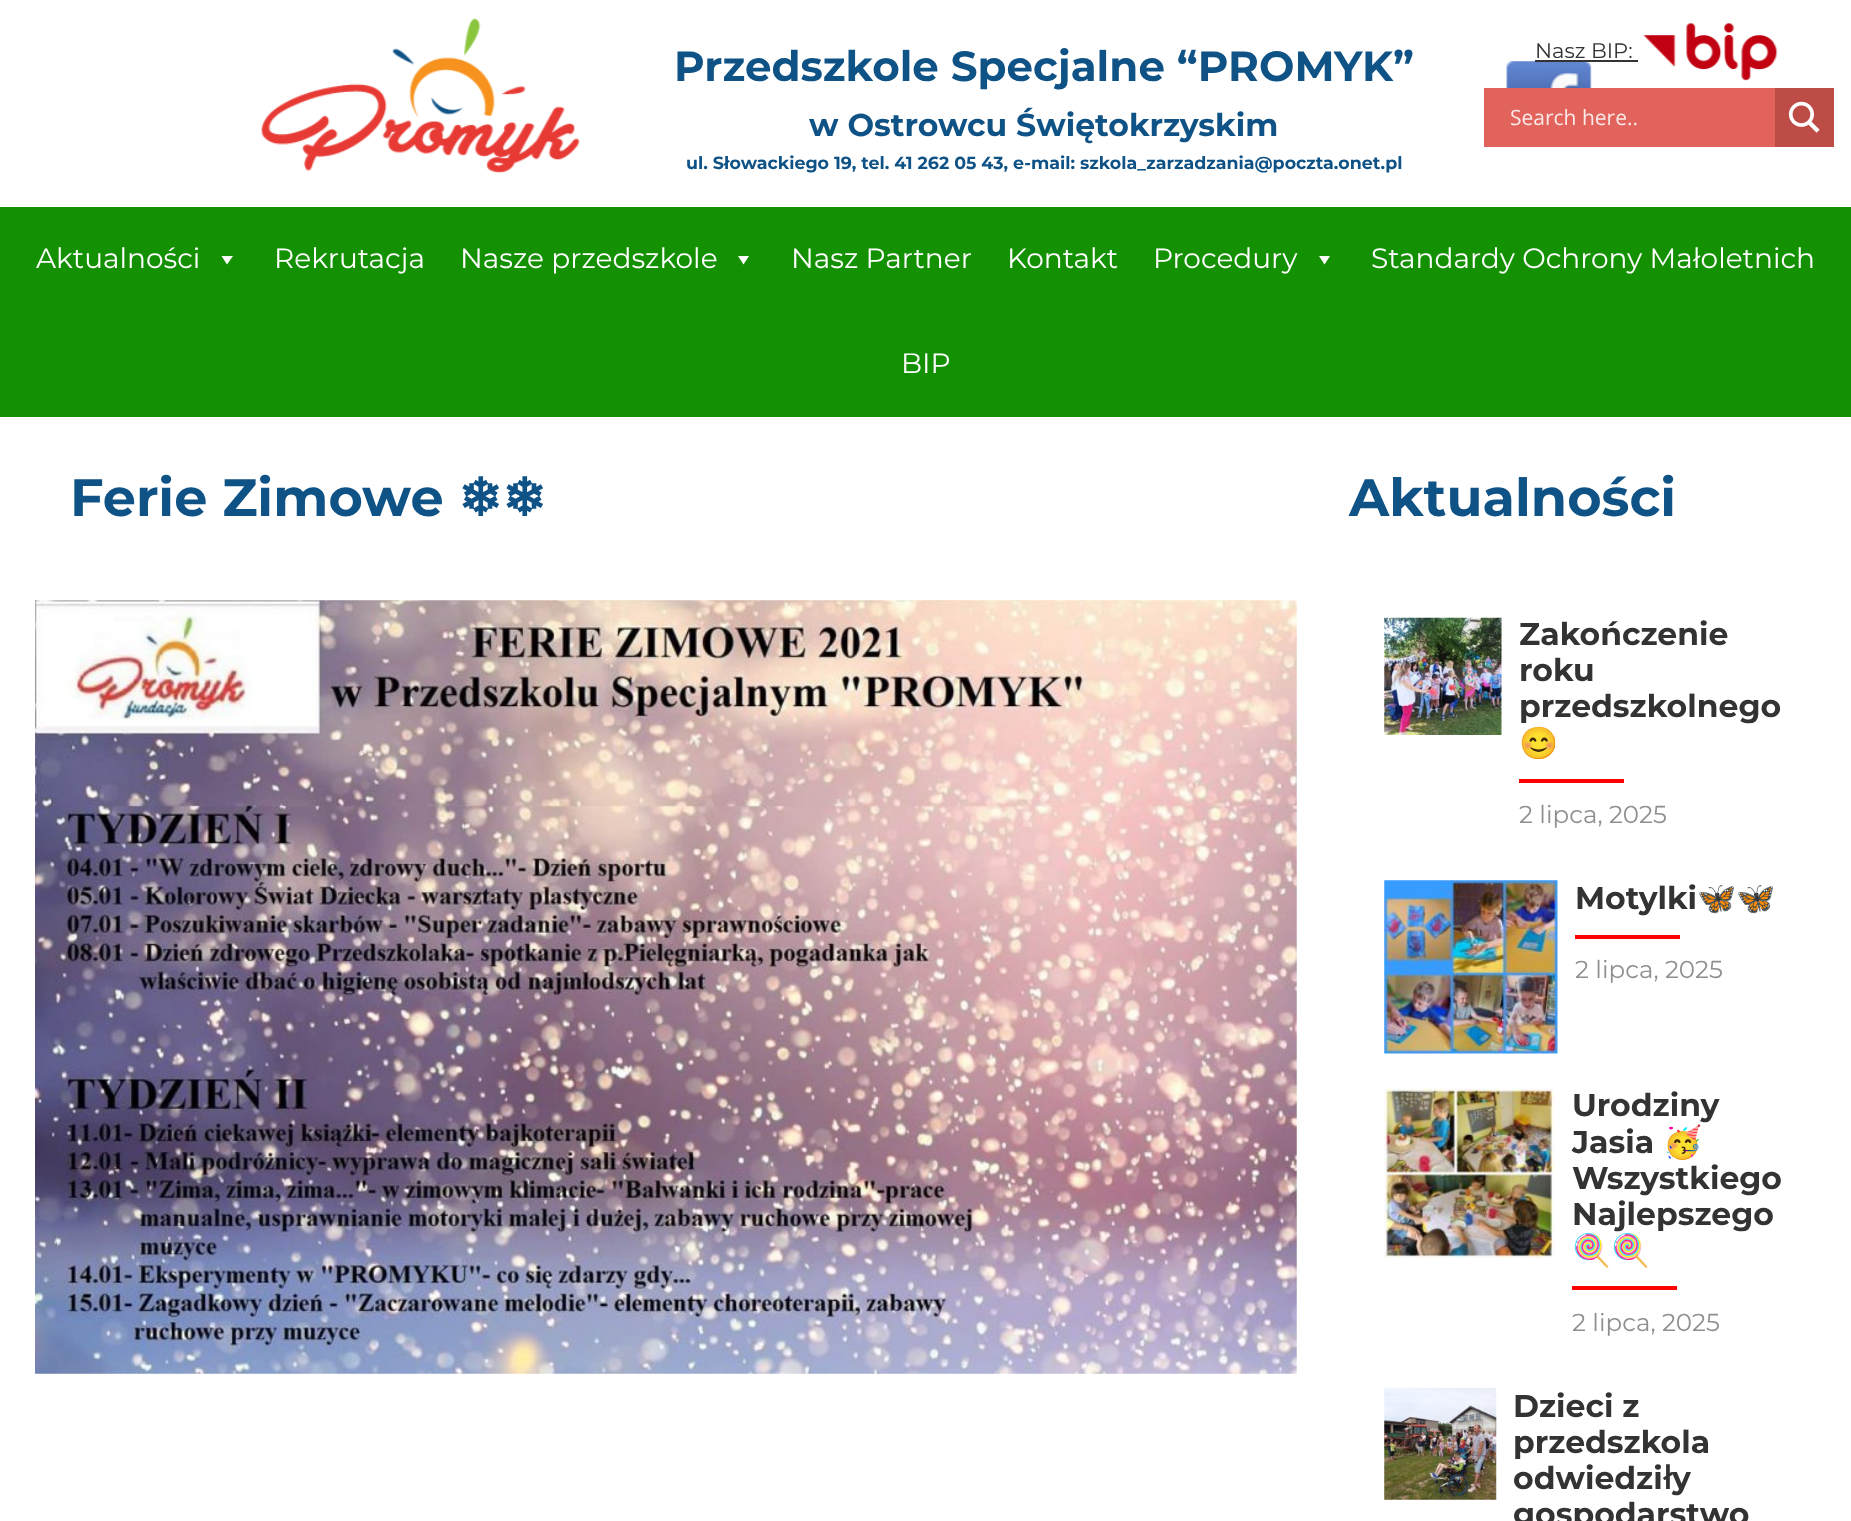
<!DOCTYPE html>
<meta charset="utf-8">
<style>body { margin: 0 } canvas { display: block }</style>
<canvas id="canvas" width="1851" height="1521"></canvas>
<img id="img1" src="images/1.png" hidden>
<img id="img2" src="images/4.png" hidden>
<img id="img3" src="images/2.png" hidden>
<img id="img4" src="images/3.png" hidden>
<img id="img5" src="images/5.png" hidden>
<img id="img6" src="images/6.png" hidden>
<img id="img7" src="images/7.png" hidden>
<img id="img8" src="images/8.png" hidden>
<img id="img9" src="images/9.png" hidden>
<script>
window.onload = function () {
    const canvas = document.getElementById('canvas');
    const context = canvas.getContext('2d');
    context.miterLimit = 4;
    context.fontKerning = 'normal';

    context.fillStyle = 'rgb(255, 255, 255)';
    context.fillRect(0, 0, 1851, 1521);
    context.drawImage(document.getElementById('img1'), 261, 18, 319, 155);
    context.drawImage(document.getElementById('img2'), 1506, 61, 86, 27);
    context.fillStyle = 'rgb(51, 51, 51)';
    context.fillRect(1535, 60, 103, 2);
    context.drawImage(document.getElementById('img3'), 1643, 23, 135, 58);
    context.fillStyle = 'rgb(225, 99, 92)';
    context.fillRect(1484, 88, 291, 59);
    context.fillStyle = 'rgb(190, 76, 70)';
    context.fillRect(1775, 88, 59, 59);
    context.drawImage(document.getElementById('img4'), 1788, 101, 32, 32);
    context.fillStyle = 'rgb(19, 145, 2)';
    context.fillRect(0, 207, 1851, 210);
    context.fillStyle = 'rgb(255, 255, 255)';
    context.beginPath();
    context.moveTo(233, 256);
    context.lineTo(227, 264.5);
    context.lineTo(221.5, 256);
    context.closePath();
    context.fill();
    context.beginPath();
    context.moveTo(749, 256);
    context.lineTo(743.5, 264.5);
    context.lineTo(738, 256);
    context.closePath();
    context.fill();
    context.beginPath();
    context.moveTo(1330, 256);
    context.lineTo(1324.5, 264.5);
    context.lineTo(1319, 256);
    context.closePath();
    context.fill();
    context.drawImage(document.getElementById('img5'), 35, 600, 1262, 774);
    context.drawImage(document.getElementById('img6'), 1384, 617, 118, 118);
    context.fillStyle = 'rgb(255, 0, 0)';
    context.fillRect(1519, 779, 105, 4);
    context.drawImage(document.getElementById('img7'), 1384, 880, 174, 174);
    context.fillRect(1575, 935, 105, 4);
    context.drawImage(document.getElementById('img8'), 1384, 1088, 170, 171);
    context.fillRect(1572, 1286, 105, 4);
    context.drawImage(document.getElementById('img9'), 1384, 1387, 113, 113);
    context.font = 'bold 42px Montserrat';
    context.fillStyle = 'rgb(15, 82, 134)';
    context.fillText('Przedszkole Specjalne “PROMYK”', 674, 81);
    context.font = 'bold 31.5px Montserrat';
    context.fillText('w Ostrowcu Świętokrzyskim', 809, 136);
    context.font = 'bold 17.45px Montserrat';
    context.fillText('ul. Słowackiego 19, tel. 41 262 05 43, e-mail: szkola_zarzadzania@poczta.onet.pl', 686, 169);
    context.font = '21px Montserrat';
    context.fillStyle = 'rgb(51, 51, 51)';
    context.fillText('Nasz BIP:', 1535, 58);
    context.font = '21px Open Sans';
    context.fillStyle = 'rgb(251, 232, 231)';
    context.fillText('Search here..', 1510, 125);
    context.font = '28px Montserrat';
    context.fillStyle = 'rgb(255, 255, 255)';
    context.fillText('Aktualności', 36, 268);
    context.fillText('Rekrutacja', 274, 268);
    context.fillText('Nasze przedszkole', 460, 268);
    context.fillText('Nasz Partner', 791, 268);
    context.fillText('Kontakt', 1007, 268);
    context.fillText('Procedury', 1153, 268);
    context.fillText('Standardy Ochrony Małoletnich', 1371, 268);
    context.fillText('BIP', 901, 373);
    context.font = 'bold 52.5px Montserrat';
    context.fillStyle = 'rgb(15, 82, 134)';
    context.fillText('Ferie Zimowe', 70, 516);
    context.font = 'bold 52.5px DejaVu Sans';
    context.fillText('❄❄', 458, 516);
    context.font = 'bold 52.5px Montserrat';
    context.fillText('Aktualności', 1349, 516);
    context.font = 'bold 31.5px Montserrat';
    context.fillStyle = 'rgb(51, 51, 51)';
    context.fillText('Zakończenie', 1519, 645);
    context.fillText('roku', 1519, 681);
    context.fillText('przedszkolnego', 1519, 717);
    context.font = 'bold 31.5px Noto Color Emoji';
    context.fillText('😊', 1519, 754);
    context.font = '24.5px Montserrat';
    context.fillStyle = 'rgb(143, 143, 143)';
    context.fillText('2 lipca, 2025', 1519, 823);
    context.font = 'bold 31.5px Montserrat';
    context.fillStyle = 'rgb(51, 51, 51)';
    context.fillText('Motylki', 1575, 909);
    context.font = 'bold 31.5px Noto Color Emoji';
    context.fillText('🦋🦋', 1697, 909);
    context.font = '24.5px Montserrat';
    context.fillStyle = 'rgb(143, 143, 143)';
    context.fillText('2 lipca, 2025', 1575, 978);
    context.font = 'bold 31.5px Montserrat';
    context.fillStyle = 'rgb(51, 51, 51)';
    context.fillText('Urodziny', 1572, 1116);
    context.fillText('Jasia', 1572, 1153);
    context.font = 'bold 31.5px Noto Color Emoji';
    context.fillText('🥳', 1663, 1153);
    context.font = 'bold 31.5px Montserrat';
    context.fillText('Wszystkiego', 1572, 1189);
    context.fillText('Najlepszego', 1572, 1225);
    context.font = 'bold 31.5px Noto Color Emoji';
    context.fillText('🍭🍭', 1572, 1261);
    context.font = '24.5px Montserrat';
    context.fillStyle = 'rgb(143, 143, 143)';
    context.fillText('2 lipca, 2025', 1572, 1331);
    context.font = 'bold 31.5px Montserrat';
    context.fillStyle = 'rgb(51, 51, 51)';
    context.fillText('Dzieci z', 1513, 1417);
    context.fillText('przedszkola', 1513, 1453);
    context.fillText('odwiedzi', 1513, 1489);
    context.font = 'bold 31.5px DejaVu Sans';
    context.fillText('ł', 1663, 1489);
    context.font = 'bold 31.5px Montserrat';
    context.fillText('y', 1672, 1489);
    context.fillText('gospodarstwo', 1513, 1525);
};
</script>
